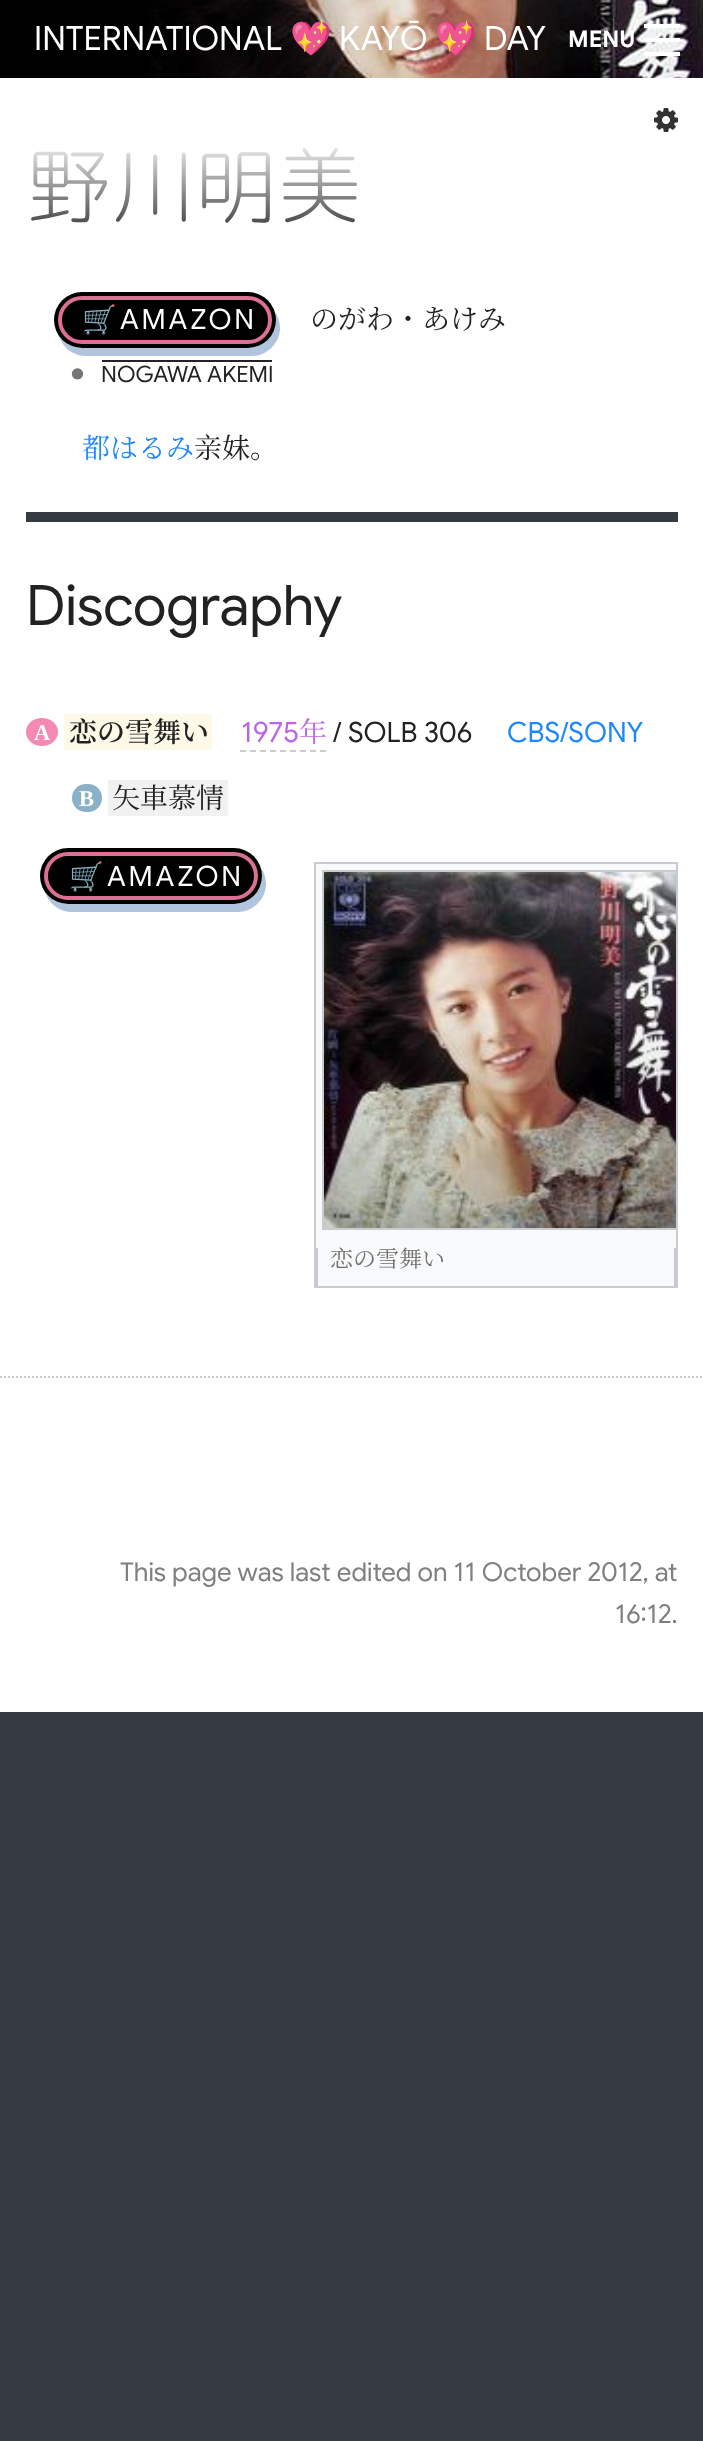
<!DOCTYPE html>
<meta charset="utf-8">
<style>body { margin: 0 } canvas { display: block }</style>
<canvas id="canvas" width="703" height="2441"></canvas>
<img id="img1" src="images/1.png" hidden>
<img id="img2" src="images/2.png" hidden>
<img id="img3" src="images/3.png" hidden>
<script>
window.onload = function () {
    const canvas = document.getElementById('canvas');
    const context = canvas.getContext('2d');
    context.miterLimit = 4;
    context.fontKerning = 'normal';
    let gradient;

    context.fillStyle = 'rgb(52, 58, 64)';
    context.fillRect(0, 0, 703, 2441);
    context.drawImage(document.getElementById('img1'), 0, 0, 703, 78);
    context.fillStyle = 'rgb(255, 255, 255)';
    context.fillRect(644, 52, 36, 4);
    context.fillRect(644, 38, 36, 4);
    context.fillRect(644, 24, 36, 4);
    context.fillRect(0, 78, 703, 1634);
    context.drawImage(document.getElementById('img2'), 654, 108, 24, 24);
    context.fillStyle = 'rgb(176, 196, 222)';
    context.beginPath();
    context.moveTo(59, 336);
    context.bezierCurveTo(63, 348, 73, 356, 86, 356);
    context.lineTo(252, 356);
    context.bezierCurveTo(267, 356, 280, 343, 280, 328);
    context.bezierCurveTo(280, 322, 278, 316, 275, 312);
    context.bezierCurveTo(276, 314, 276, 317, 276, 320);
    context.bezierCurveTo(276, 335, 263, 348, 248, 348);
    context.lineTo(82, 348);
    context.bezierCurveTo(73, 348, 64, 343, 59, 336);
    context.closePath();
    context.fill();
    context.fillStyle = 'rgb(0, 0, 0)';
    context.beginPath();
    context.roundRect(54, 292, 222, 56, 28);
    context.fill();
    context.beginPath();
    context.roundRect(60, 298, 210, 44, 22);
    context.strokeStyle = 'rgb(219, 112, 147)';
    context.lineWidth = 4;
    context.stroke();
    context.fillStyle = 'rgb(34, 34, 34)';
    context.fillRect(102, 360, 170, 2);
    context.fillStyle = 'rgb(52, 58, 64)';
    context.fillRect(26, 512, 652, 10);
    context.beginPath();
    context.moveTo(0, 1377);
    context.lineTo(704, 1377);
    context.strokeStyle = 'rgb(204, 204, 204)';
    context.lineWidth = 2;
    context.setLineDash([2, 2]);
    context.stroke();
    context.fillStyle = 'rgb(244, 138, 180)';
    context.beginPath();
    context.ellipse(42, 732, 16, 14, 0, 0, 2 * Math.PI);
    context.fill();
    context.fillStyle = 'rgb(252, 249, 231)';
    context.fillRect(64, 714, 148, 36);
    context.beginPath();
    context.moveTo(240, 751);
    context.lineTo(326, 751);
    context.setLineDash([6, 4]);
    context.stroke();
    context.fillStyle = 'rgb(138, 177, 199)';
    context.beginPath();
    context.roundRect(72, 784, 30, 28, 14);
    context.fill();
    context.fillStyle = 'rgb(241, 241, 241)';
    context.fillRect(108, 780, 120, 36);
    context.fillStyle = 'rgb(176, 196, 222)';
    context.beginPath();
    context.moveTo(45, 892);
    context.bezierCurveTo(49, 904, 59, 912, 72, 912);
    context.lineTo(238, 912);
    context.bezierCurveTo(253, 912, 266, 899, 266, 884);
    context.bezierCurveTo(266, 878, 264, 872, 261, 868);
    context.bezierCurveTo(262, 870, 262, 873, 262, 876);
    context.bezierCurveTo(262, 891, 249, 904, 234, 904);
    context.lineTo(68, 904);
    context.bezierCurveTo(59, 904, 50, 899, 45, 892);
    context.closePath();
    context.fill();
    context.fillStyle = 'rgb(0, 0, 0)';
    context.beginPath();
    context.roundRect(40, 848, 222, 56, 28);
    context.fill();
    context.beginPath();
    context.roundRect(46, 854, 210, 44, 22);
    context.strokeStyle = 'rgb(219, 112, 147)';
    context.lineWidth = 4;
    context.setLineDash([]);
    context.stroke();
    context.fillStyle = 'rgb(248, 249, 250)';
    context.fillRect(316, 864, 360, 422);
    context.fillStyle = 'rgb(200, 204, 209)';
    context.fillRect(314, 862, 364, 2);
    context.fillRect(676, 862, 2, 426);
    context.fillRect(314, 862, 2, 426);
    context.save();
    context.beginPath();
    context.rect(316, 864, 360, 372);
    context.clip();
    context.strokeStyle = 'rgb(200, 204, 209)';
    context.lineWidth = 2;
    context.strokeRect(323, 871, 358, 358);
    context.restore();
    context.drawImage(document.getElementById('img3'), 324, 872, 352, 356);
    context.fillRect(674, 1248, 2, 40);
    context.fillRect(316, 1286, 360, 2);
    context.fillRect(316, 1248, 2, 40);
    context.font = '33.5px Google Sans';
    context.fillStyle = 'rgb(255, 255, 255)';
    context.fillText('INTERNATIONAL', 34, 50);
    context.font = '33.5px Noto Color Emoji';
    context.fillText('💖', 290, 50);
    context.font = '33.5px Google Sans';
    context.fillText('KAYŌ', 339, 50);
    context.font = '33.5px Noto Color Emoji';
    context.fillText('💖', 435, 50);
    context.font = '33.5px Google Sans';
    context.fillText('DAY', 484, 50);
    context.font = 'bold 23px Google Sans';
    context.fillText('MENU', 568, 47);
    context.font = '300 84px "Rounded Mplus 1c"';
    gradient = context.createLinearGradient(26, 135, 26, 236);
    gradient.addColorStop(0, 'rgb(255, 255, 255)');
    gradient.addColorStop(1, 'rgb(51, 51, 51)');
    context.fillStyle = gradient;
    context.fillText('野川明美', 26, 217);
    context.letterSpacing = '2.75px';
    context.font = '28px Noto Color Emoji';
    context.fillStyle = 'rgb(255, 255, 255)';
    context.fillText('🛒', 82, 329);
    context.font = '28px Google Sans';
    context.fillText('AMAZON', 120, 329);
    context.letterSpacing = '0px';
    context.font = '28px Noto Serif SC';
    context.fillStyle = 'rgb(34, 34, 34)';
    context.fillText('のがわ・あけみ', 310, 329);
    context.font = '50px Google Sans';
    context.fillStyle = 'rgb(119, 119, 119)';
    context.fillText('•', 68, 390);
    context.font = '22.5px Google Sans';
    context.fillStyle = 'rgb(34, 34, 34)';
    context.fillText('NOGAWA AKEMI', 101, 382);
    context.font = '28px Noto Serif JP';
    context.fillStyle = 'rgb(30, 135, 252)';
    context.fillText('都はるみ', 82, 458);
    context.font = '28px Noto Serif SC';
    context.fillStyle = 'rgb(34, 34, 34)';
    context.fillText('亲妹。', 194, 458);
    context.font = '56px Google Sans';
    context.fillText('Discography', 26, 625);
    context.font = 'bold 22.5px Liberation Serif';
    context.fillStyle = 'rgb(255, 255, 255)';
    context.fillText('A', 34, 740);
    context.font = '600 28px Noto Serif SC';
    context.fillStyle = 'rgb(34, 34, 34)';
    context.fillText('恋の雪舞い', 69, 742);
    context.font = '28px Google Sans';
    context.fillStyle = 'rgb(186, 102, 232)';
    context.fillText('1975', 241, 742);
    context.font = '28px Noto Serif JP';
    context.fillText('年', 299, 742);
    context.font = '28px Google Sans';
    context.fillStyle = 'rgb(34, 34, 34)';
    context.fillText('/ SOLB 306', 333, 742);
    context.fillStyle = 'rgb(30, 135, 252)';
    context.fillText('CBS/SONY', 507, 742);
    context.font = 'bold 22.5px Liberation Serif';
    context.fillStyle = 'rgb(255, 255, 255)';
    context.fillText('B', 79, 806);
    context.font = '28px Noto Serif SC';
    context.fillStyle = 'rgb(34, 34, 34)';
    context.fillText('矢車慕情', 112, 808);
    context.letterSpacing = '2.75px';
    context.font = '28px Noto Color Emoji';
    context.fillStyle = 'rgb(255, 255, 255)';
    context.fillText('🛒', 69, 886);
    context.font = '28px Google Sans';
    context.fillText('AMAZON', 107, 886);
    context.letterSpacing = '0px';
    context.font = '23px Noto Serif SC';
    context.fillStyle = 'rgb(111, 111, 111)';
    context.fillText('恋の雪舞い', 330, 1267);
    context.font = '26px Google Sans';
    context.fillStyle = 'rgb(128, 128, 128)';
    context.fillText('This page was last edited on 11 October 2012, at', 120, 1581);
    context.fillText('16:12.', 615, 1623);
};
</script>
